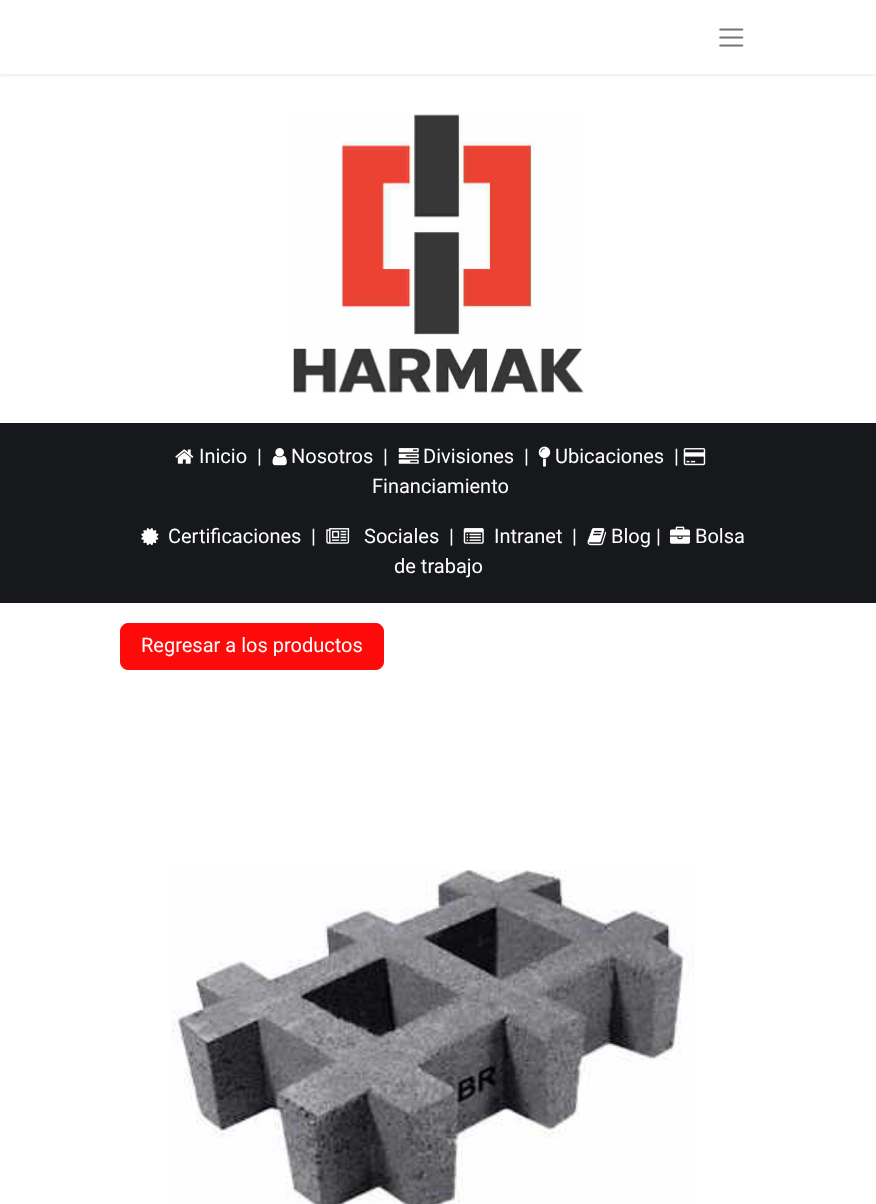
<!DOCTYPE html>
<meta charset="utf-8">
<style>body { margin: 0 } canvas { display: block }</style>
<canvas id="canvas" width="876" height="1204"></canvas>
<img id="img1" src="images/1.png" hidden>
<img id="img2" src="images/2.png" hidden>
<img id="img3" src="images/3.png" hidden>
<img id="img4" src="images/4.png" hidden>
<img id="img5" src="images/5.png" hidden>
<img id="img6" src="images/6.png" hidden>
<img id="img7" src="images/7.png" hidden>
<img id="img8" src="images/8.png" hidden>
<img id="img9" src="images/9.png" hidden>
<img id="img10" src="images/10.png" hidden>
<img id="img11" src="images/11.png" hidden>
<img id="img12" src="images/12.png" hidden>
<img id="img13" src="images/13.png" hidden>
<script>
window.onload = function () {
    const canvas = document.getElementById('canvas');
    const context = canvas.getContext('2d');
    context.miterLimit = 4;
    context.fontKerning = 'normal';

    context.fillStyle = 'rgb(255, 255, 255)';
    context.fillRect(0, 0, 876, 1204);
    context.fillStyle = 'rgba(0, 0, 0, 0.1)';
    context.filter = 'blur(2px)';
    context.beginPath();
    context.rect(0, 1, 876, 74);
    context.fill();
    context.filter = 'none';
    context.fillStyle = 'rgb(255, 255, 255)';
    context.fillRect(0, 0, 876, 74);
    context.drawImage(document.getElementById('img1'), 719, 28, 25, 19);
    context.drawImage(document.getElementById('img2'), 291, 114, 293, 279);
    context.fillStyle = 'rgb(22, 24, 27)';
    context.fillRect(0, 423, 876, 180);
    context.drawImage(document.getElementById('img3'), 175, 449, 19, 15);
    context.drawImage(document.getElementById('img4'), 272, 448, 15, 18);
    context.drawImage(document.getElementById('img5'), 398, 448, 21, 16);
    context.drawImage(document.getElementById('img6'), 538, 446, 13, 21);
    context.drawImage(document.getElementById('img7'), 683, 448, 23, 18);
    context.drawImage(document.getElementById('img8'), 141, 528, 18, 18);
    context.drawImage(document.getElementById('img9'), 326, 528, 24, 16);
    context.drawImage(document.getElementById('img10'), 670, 526, 20, 18);
    context.drawImage(document.getElementById('img11'), 463, 528, 21, 16);
    context.drawImage(document.getElementById('img12'), 587, 528, 20, 18);
    context.fillStyle = 'rgb(255, 10, 10)';
    context.beginPath();
    context.roundRect(120.5, 623.5, 263, 46, 7.5);
    context.fill();
    context.strokeStyle = 'rgb(255, 10, 10)';
    context.stroke();
    context.drawImage(document.getElementById('img13'), 171, 870, 523, 334);
    context.font = '20px Roboto';
    context.fillStyle = 'rgb(255, 255, 255)';
    context.fillText('Inicio', 199, 463);
    context.fillText('|', 257, 463);
    context.fillText('Nosotros', 291, 463);
    context.fillText('|', 383, 463);
    context.fillText('Divisiones', 423, 463);
    context.fillText('|', 524, 463);
    context.fillText('Ubicaciones', 555, 463);
    context.fillText('|', 674, 463);
    context.fillText('Financiamiento', 372, 493);
    context.fillText('Certificaciones', 168, 543);
    context.fillText('|', 311, 543);
    context.fillText('Sociales', 364, 543);
    context.fillText('Bolsa', 695, 543);
    context.fillText('de trabajo', 394, 573);
    context.fillText('|', 449, 543);
    context.fillText('Intranet', 494, 543);
    context.fillText('|', 572, 543);
    context.fillText('Blog |', 611, 543);
    context.fillText('Regresar a los productos', 141, 652);
};
</script>
